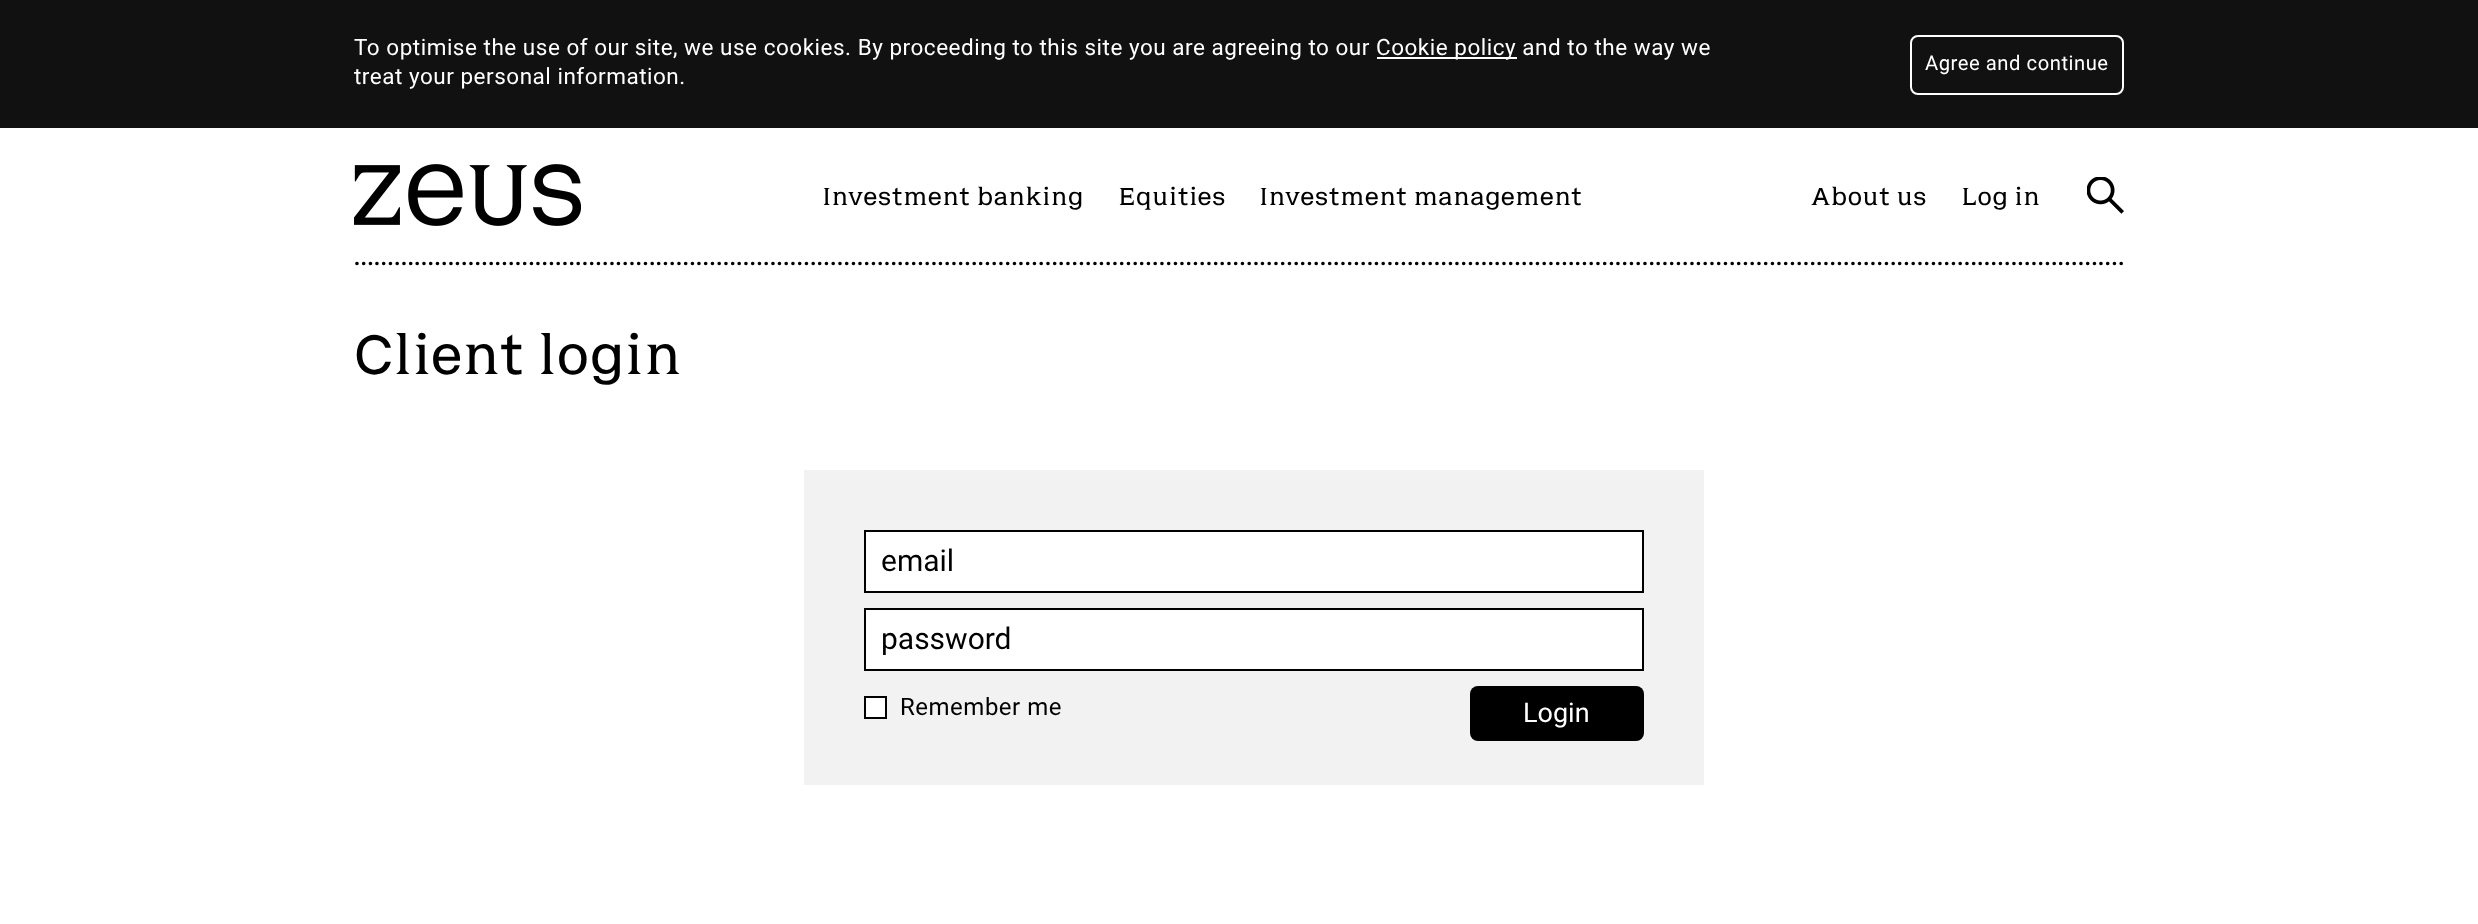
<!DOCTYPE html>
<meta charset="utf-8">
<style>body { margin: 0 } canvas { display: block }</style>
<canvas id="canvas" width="2478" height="924"></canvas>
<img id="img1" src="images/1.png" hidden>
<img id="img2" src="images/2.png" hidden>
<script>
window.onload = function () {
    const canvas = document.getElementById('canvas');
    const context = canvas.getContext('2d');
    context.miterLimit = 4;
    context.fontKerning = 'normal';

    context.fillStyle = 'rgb(255, 255, 255)';
    context.fillRect(0, 0, 2478, 924);
    context.fillStyle = 'rgb(17, 17, 17)';
    context.fillRect(0, 0, 2478, 128);
    context.fillStyle = 'rgb(255, 255, 255)';
    context.fillRect(1377, 57, 140, 2);
    context.beginPath();
    context.roundRect(1911, 36, 212, 58, 7);
    context.strokeStyle = 'rgb(255, 255, 255)';
    context.lineWidth = 2;
    context.stroke();
    context.drawImage(document.getElementById('img1'), 354, 164, 227, 62);
    context.drawImage(document.getElementById('img2'), 2087, 177, 37, 37);
    context.fillStyle = 'rgb(242, 242, 242)';
    context.fillRect(804, 470, 900, 315);
    context.fillStyle = 'rgb(255, 255, 255)';
    context.beginPath();
    context.rect(865, 531, 778, 61);
    context.fill();
    context.strokeStyle = 'rgb(0, 0, 0)';
    context.stroke();
    context.beginPath();
    context.rect(865, 609, 778, 61);
    context.fill();
    context.stroke();
    context.beginPath();
    context.rect(865, 697, 21, 21);
    context.fill();
    context.stroke();
    context.fillStyle = 'rgb(0, 0, 0)';
    context.beginPath();
    context.roundRect(1470, 686, 174, 55, 8);
    context.fill();
    context.letterSpacing = '0.52px';
    context.font = '22.5px Roboto';
    context.fillStyle = 'rgb(255, 255, 255)';
    context.fillText('To optimise the use of our site, we use cookies. By proceeding to this site you are agreeing to our', 354, 55);
    context.fillText('Cookie policy and to the way we', 1376, 55);
    context.fillText('treat your personal information.', 354, 84);
    context.font = '20.25px Roboto';
    context.fillText('Agree and continue', 1925, 70);
    context.font = '24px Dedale';
    context.fillStyle = 'rgb(0, 0, 0)';
    context.fillText('Investment banking', 822, 205);
    context.fillText('Equities', 1118, 205);
    context.fillText('Investment management', 1259, 205);
    context.fillText('About us', 1811, 205);
    context.fillText('Log in', 1961, 205);
    context.letterSpacing = '-1.5px';
    context.font = '31.2px Roboto';
    context.fillText('........................................................................................................................................................................................................................................................................', 353, 265);
    context.letterSpacing = '0.52px';
    context.font = '54px Dedale';
    context.fillText('Client login', 354, 374);
    context.letterSpacing = '0px';
    context.font = '30px Roboto';
    context.fillText('email', 881, 571);
    context.fillText('password', 881, 649);
    context.letterSpacing = '0.52px';
    context.font = '24px Roboto';
    context.fillText('Remember me', 900, 715);
    context.letterSpacing = '0px';
    context.font = '27px Roboto';
    context.fillStyle = 'rgb(255, 255, 255)';
    context.fillText('Login', 1523, 722);
};
</script>
